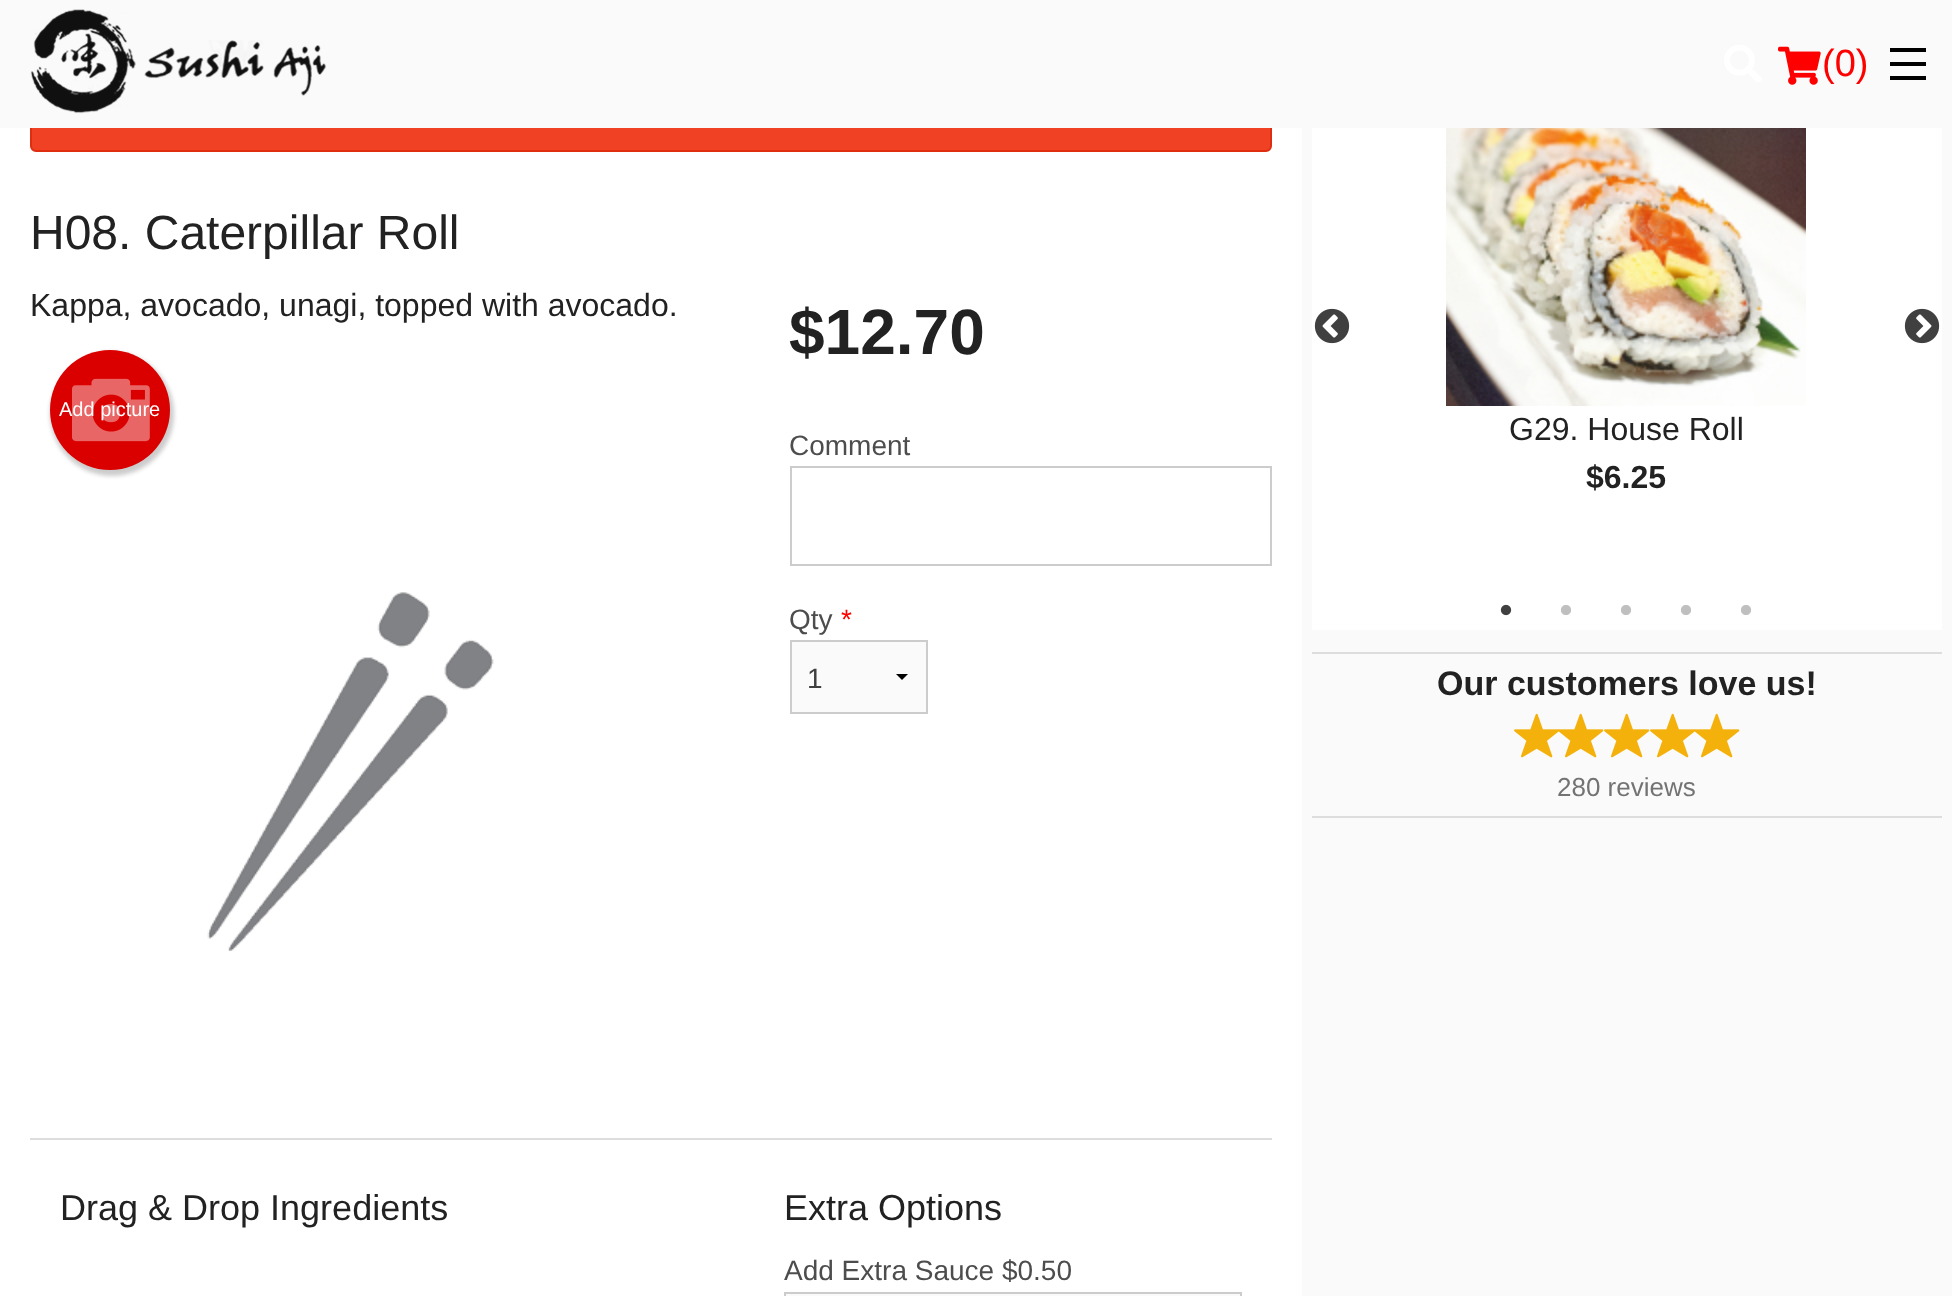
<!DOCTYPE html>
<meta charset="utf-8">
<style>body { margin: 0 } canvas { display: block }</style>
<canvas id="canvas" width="1952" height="1296"></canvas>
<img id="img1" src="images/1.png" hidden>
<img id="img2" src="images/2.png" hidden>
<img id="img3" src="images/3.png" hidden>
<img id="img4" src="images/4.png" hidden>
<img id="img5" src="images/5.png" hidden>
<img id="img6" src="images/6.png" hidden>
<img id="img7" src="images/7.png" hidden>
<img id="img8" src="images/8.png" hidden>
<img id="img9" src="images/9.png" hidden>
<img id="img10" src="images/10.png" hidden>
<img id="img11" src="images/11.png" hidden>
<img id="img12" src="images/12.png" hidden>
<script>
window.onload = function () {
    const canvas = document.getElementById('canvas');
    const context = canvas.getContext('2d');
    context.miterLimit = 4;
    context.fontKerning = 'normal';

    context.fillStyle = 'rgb(255, 255, 255)';
    context.fillRect(0, 0, 1952, 1296);
    context.fillStyle = 'rgb(240, 65, 36)';
    context.beginPath();
    context.roundRect(31, 73, 1240, 78, 5);
    context.fill();
    context.strokeStyle = 'rgb(222, 45, 15)';
    context.lineWidth = 2;
    context.stroke();
    context.fillStyle = 'rgb(250, 250, 250)';
    context.fillRect(0, 0, 1952, 128);
    context.drawImage(document.getElementById('img1'), 30, 9, 297, 105);
    context.drawImage(document.getElementById('img2'), 1724, 45, 38, 37);
    context.drawImage(document.getElementById('img3'), 1778, 46, 43, 39);
    context.fillStyle = 'rgb(0, 0, 0)';
    context.fillRect(1890, 76, 36, 4);
    context.fillRect(1890, 62, 36, 4);
    context.fillRect(1890, 48, 36, 4);
    context.fillStyle = 'rgba(0, 0, 0, 0.2)';
    context.filter = 'blur(2px)';
    context.beginPath();
    context.roundRect(50, 352, 124, 124, 62);
    context.fill();
    context.filter = 'none';
    context.fillStyle = 'rgb(218, 0, 0)';
    context.beginPath();
    context.arc(110, 410, 60, 0, 2 * Math.PI);
    context.fill();
    context.drawImage(document.getElementById('img4'), 72, 378, 78, 64);
    context.drawImage(document.getElementById('img5'), 207, 592, 287, 360);
    context.strokeStyle = 'rgb(204, 204, 204)';
    context.strokeRect(791, 467, 480, 98);
    context.fillStyle = 'rgb(250, 250, 250)';
    context.fillRect(792, 642, 134, 70);
    context.fillStyle = 'rgb(0, 0, 0)';
    context.beginPath();
    context.moveTo(908, 674);
    context.lineTo(902, 680);
    context.lineTo(896, 674);
    context.closePath();
    context.fill();
    context.strokeRect(791, 641, 136, 72);
    context.fillStyle = 'rgb(221, 221, 221)';
    context.fillRect(30, 1138, 1242, 2);
    context.fillStyle = 'rgb(250, 250, 250)';
    context.beginPath();
    context.rect(785, 1293, 456, 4);
    context.fill();
    context.stroke();
    context.fillRect(1302, 128, 650, 1168);
    context.fillStyle = 'rgb(255, 255, 255)';
    context.fillRect(1312, 128, 630, 502);
    context.drawImage(document.getElementById('img6'), 1314, 308, 36, 36);
    context.drawImage(document.getElementById('img7'), 1904, 308, 36, 36);
    context.drawImage(document.getElementById('img8'), 1446, 128, 360, 278);
    context.drawImage(document.getElementById('img9'), 1500, 604, 12, 12);
    context.drawImage(document.getElementById('img10'), 1561, 605, 10, 10);
    context.drawImage(document.getElementById('img10'), 1621, 605, 10, 10);
    context.drawImage(document.getElementById('img10'), 1681, 605, 10, 10);
    context.drawImage(document.getElementById('img10'), 1741, 605, 10, 10);
    context.fillStyle = 'rgb(221, 221, 221)';
    context.fillRect(1312, 652, 630, 2);
    context.drawImage(document.getElementById('img11'), 1514, 713, 46, 45);
    context.drawImage(document.getElementById('img12'), 1558, 713, 46, 45);
    context.drawImage(document.getElementById('img11'), 1604, 713, 46, 45);
    context.drawImage(document.getElementById('img11'), 1650, 713, 46, 45);
    context.drawImage(document.getElementById('img12'), 1694, 713, 46, 45);
    context.fillRect(1312, 816, 630, 2);
    context.font = '38px Liberation Sans';
    context.fillStyle = 'rgb(255, 0, 0)';
    context.fillText('(0)', 1822, 76);
    context.font = '48px Liberation Sans';
    context.fillStyle = 'rgb(34, 34, 34)';
    context.fillText('H08. Caterpillar Roll', 30, 249);
    context.font = '32px Liberation Sans';
    context.fillText('Kappa, avocado, unagi, topped with avocado.', 30, 316);
    context.font = '20px Liberation Sans';
    context.fillStyle = 'rgb(255, 255, 255)';
    context.fillText('Add picture', 59, 416);
    context.font = 'bold 64px Liberation Sans';
    context.fillStyle = 'rgb(34, 34, 34)';
    context.fillText('$12.70', 789, 354);
    context.font = '28px Liberation Sans';
    context.fillStyle = 'rgb(77, 77, 77)';
    context.fillText('Comment', 789, 455);
    context.fillText('Qty', 789, 629);
    context.fillStyle = 'rgb(255, 0, 0)';
    context.fillText('*', 841, 629);
    context.fillStyle = 'rgb(63, 63, 63)';
    context.fillText('1', 807, 688);
    context.font = '36px Liberation Sans';
    context.fillStyle = 'rgb(34, 34, 34)';
    context.fillText('Drag & Drop Ingredients', 60, 1220);
    context.fillText('Extra Options', 784, 1220);
    context.font = '28px Liberation Sans';
    context.fillStyle = 'rgb(77, 77, 77)';
    context.fillText('Add Extra Sauce $0.50', 784, 1280);
    context.font = '32px Liberation Sans';
    context.fillStyle = 'rgb(34, 34, 34)';
    context.fillText('G29. House Roll', 1509, 440);
    context.font = 'bold 32px Liberation Sans';
    context.fillText('$6.25', 1586, 488);
    context.font = 'bold 34px Liberation Sans';
    context.fillText('Our customers love us!', 1437, 695);
    context.font = '26px Liberation Sans';
    context.fillStyle = 'rgb(115, 115, 115)';
    context.fillText('280 reviews', 1557, 796);
};
</script>
